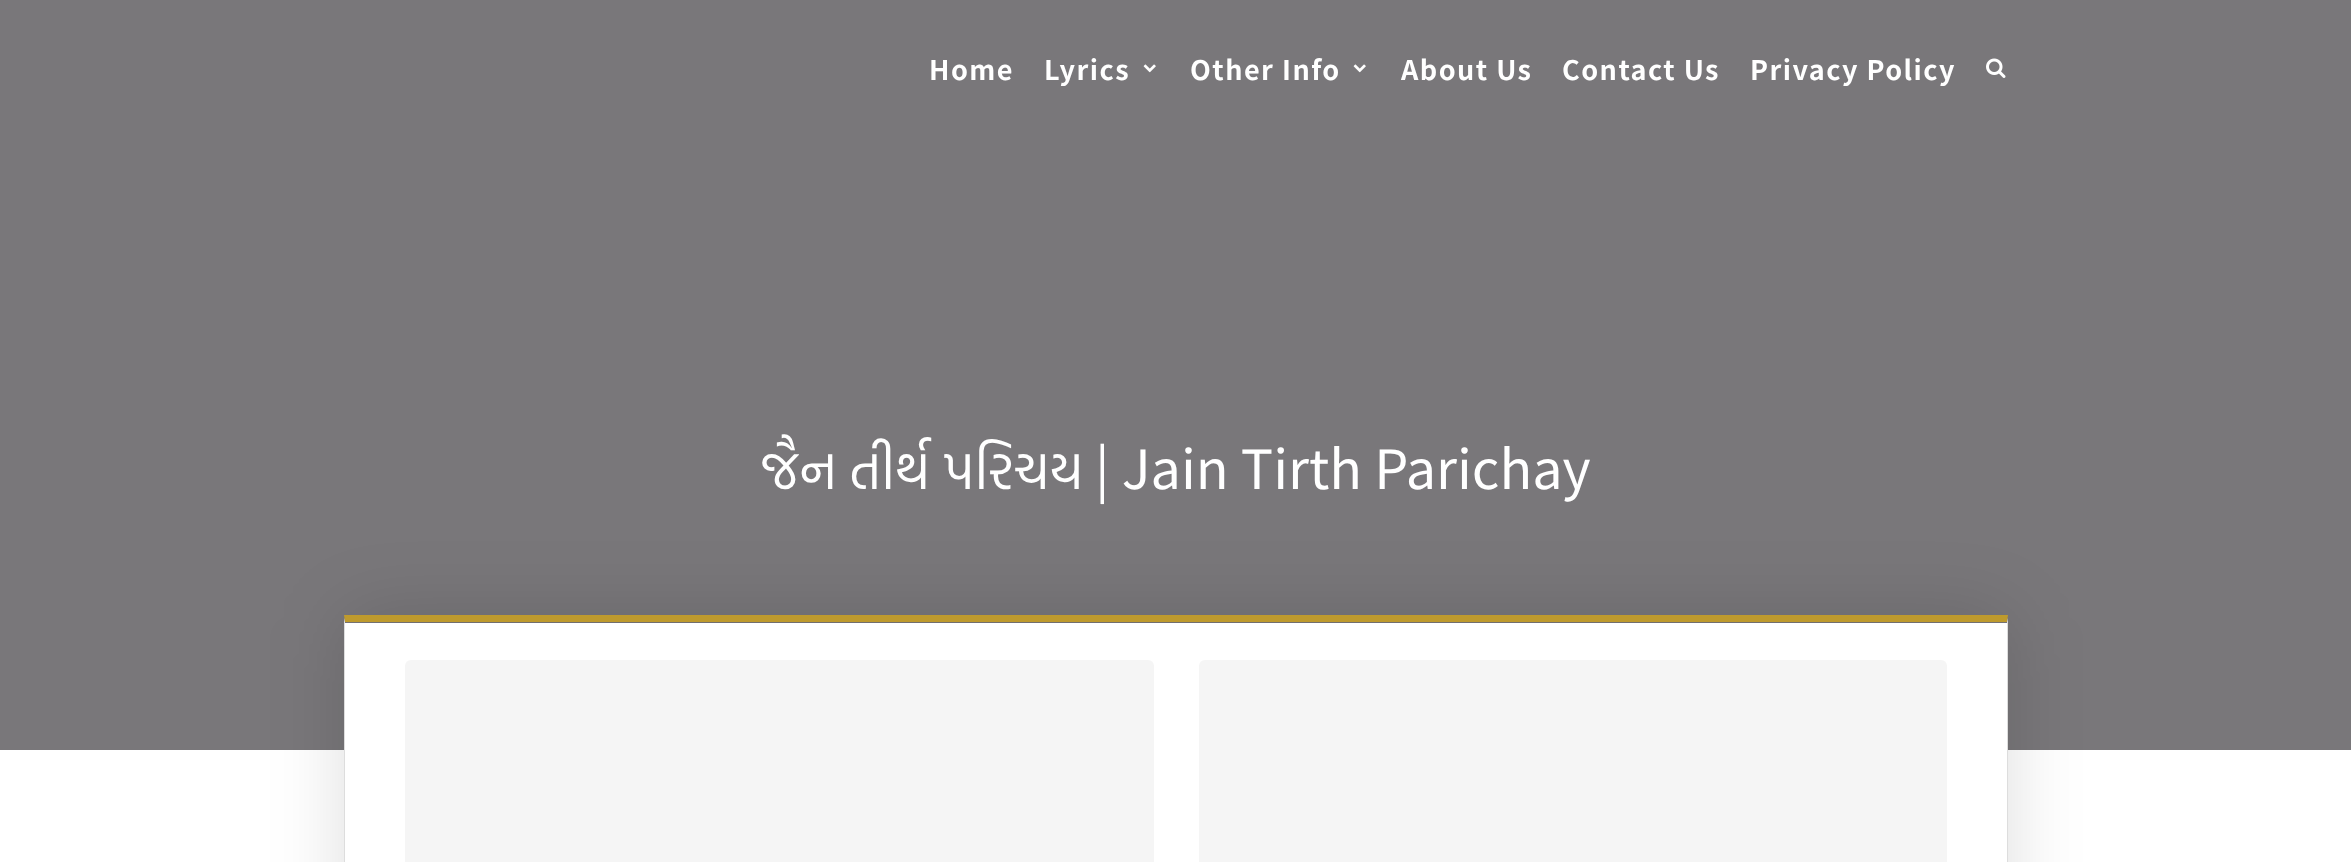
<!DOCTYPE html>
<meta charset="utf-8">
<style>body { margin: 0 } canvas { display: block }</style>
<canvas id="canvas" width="2351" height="862"></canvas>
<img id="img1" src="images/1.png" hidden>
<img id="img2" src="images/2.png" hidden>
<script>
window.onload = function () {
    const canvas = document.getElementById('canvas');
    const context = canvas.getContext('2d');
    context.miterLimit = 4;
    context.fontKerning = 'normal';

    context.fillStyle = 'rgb(255, 255, 255)';
    context.fillRect(0, 0, 2351, 862);
    context.fillStyle = 'rgb(121, 119, 122)';
    context.fillRect(0, 0, 2351, 750);
    context.drawImage(document.getElementById('img1'), 1143, 64, 13, 9);
    context.drawImage(document.getElementById('img1'), 1353, 64, 13, 9);
    context.drawImage(document.getElementById('img2'), 1986, 58, 20, 20);
    context.fillStyle = 'rgba(0, 0, 0, 0.13)';
    context.filter = 'blur(37.5px)';
    context.beginPath();
    context.roundRect(344, 615, 1665, 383, 23);
    context.fill();
    context.filter = 'none';
    context.fillStyle = 'rgb(255, 255, 255)';
    context.fillRect(345, 623, 1662, 239);
    context.fillStyle = 'rgb(190, 154, 45)';
    context.beginPath();
    context.moveTo(344, 615);
    context.lineTo(345, 622);
    context.lineTo(2007, 622);
    context.lineTo(2008, 615);
    context.closePath();
    context.fill();
    context.fillStyle = 'rgb(221, 221, 221)';
    context.beginPath();
    context.moveTo(2008, 618);
    context.lineTo(2008, 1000);
    context.bezierCurveTo(2008, 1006, 2006, 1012, 2002, 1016);
    context.lineTo(2001, 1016);
    context.bezierCurveTo(2005, 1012, 2007, 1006, 2007, 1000);
    context.lineTo(2007, 622);
    context.closePath();
    context.fill();
    context.beginPath();
    context.moveTo(344, 618);
    context.lineTo(344, 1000);
    context.bezierCurveTo(344, 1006, 346, 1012, 350, 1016);
    context.lineTo(351, 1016);
    context.bezierCurveTo(347, 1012, 345, 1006, 345, 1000);
    context.lineTo(345, 622);
    context.closePath();
    context.fill();
    context.fillStyle = 'rgb(245, 245, 245)';
    context.beginPath();
    context.roundRect(405, 660, 749, 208, 6);
    context.fill();
    context.beginPath();
    context.roundRect(1199, 660, 748, 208, 6);
    context.fill();
    context.letterSpacing = '1.5px';
    context.font = 'bold 27px Noto Sans JP';
    context.fillStyle = 'rgb(255, 255, 255)';
    context.fillText('Home', 929, 80);
    context.fillText('Lyrics', 1044, 80);
    context.fillText('Other Info', 1190, 80);
    context.fillText('About Us', 1401, 80);
    context.fillText('Contact Us', 1562, 80);
    context.fillText('Privacy Policy', 1750, 80);
    context.letterSpacing = '0px';
    context.font = '54px Hind Vadodara';
    context.fillText('જૈન', 761, 489);
    context.fillText('તીર્થ', 849, 489);
    context.fillText('પરિચય', 943, 489);
    context.font = '54px Noto Sans JP';
    context.fillText('| Jain Tirth Parichay', 1095, 489);
};
</script>
